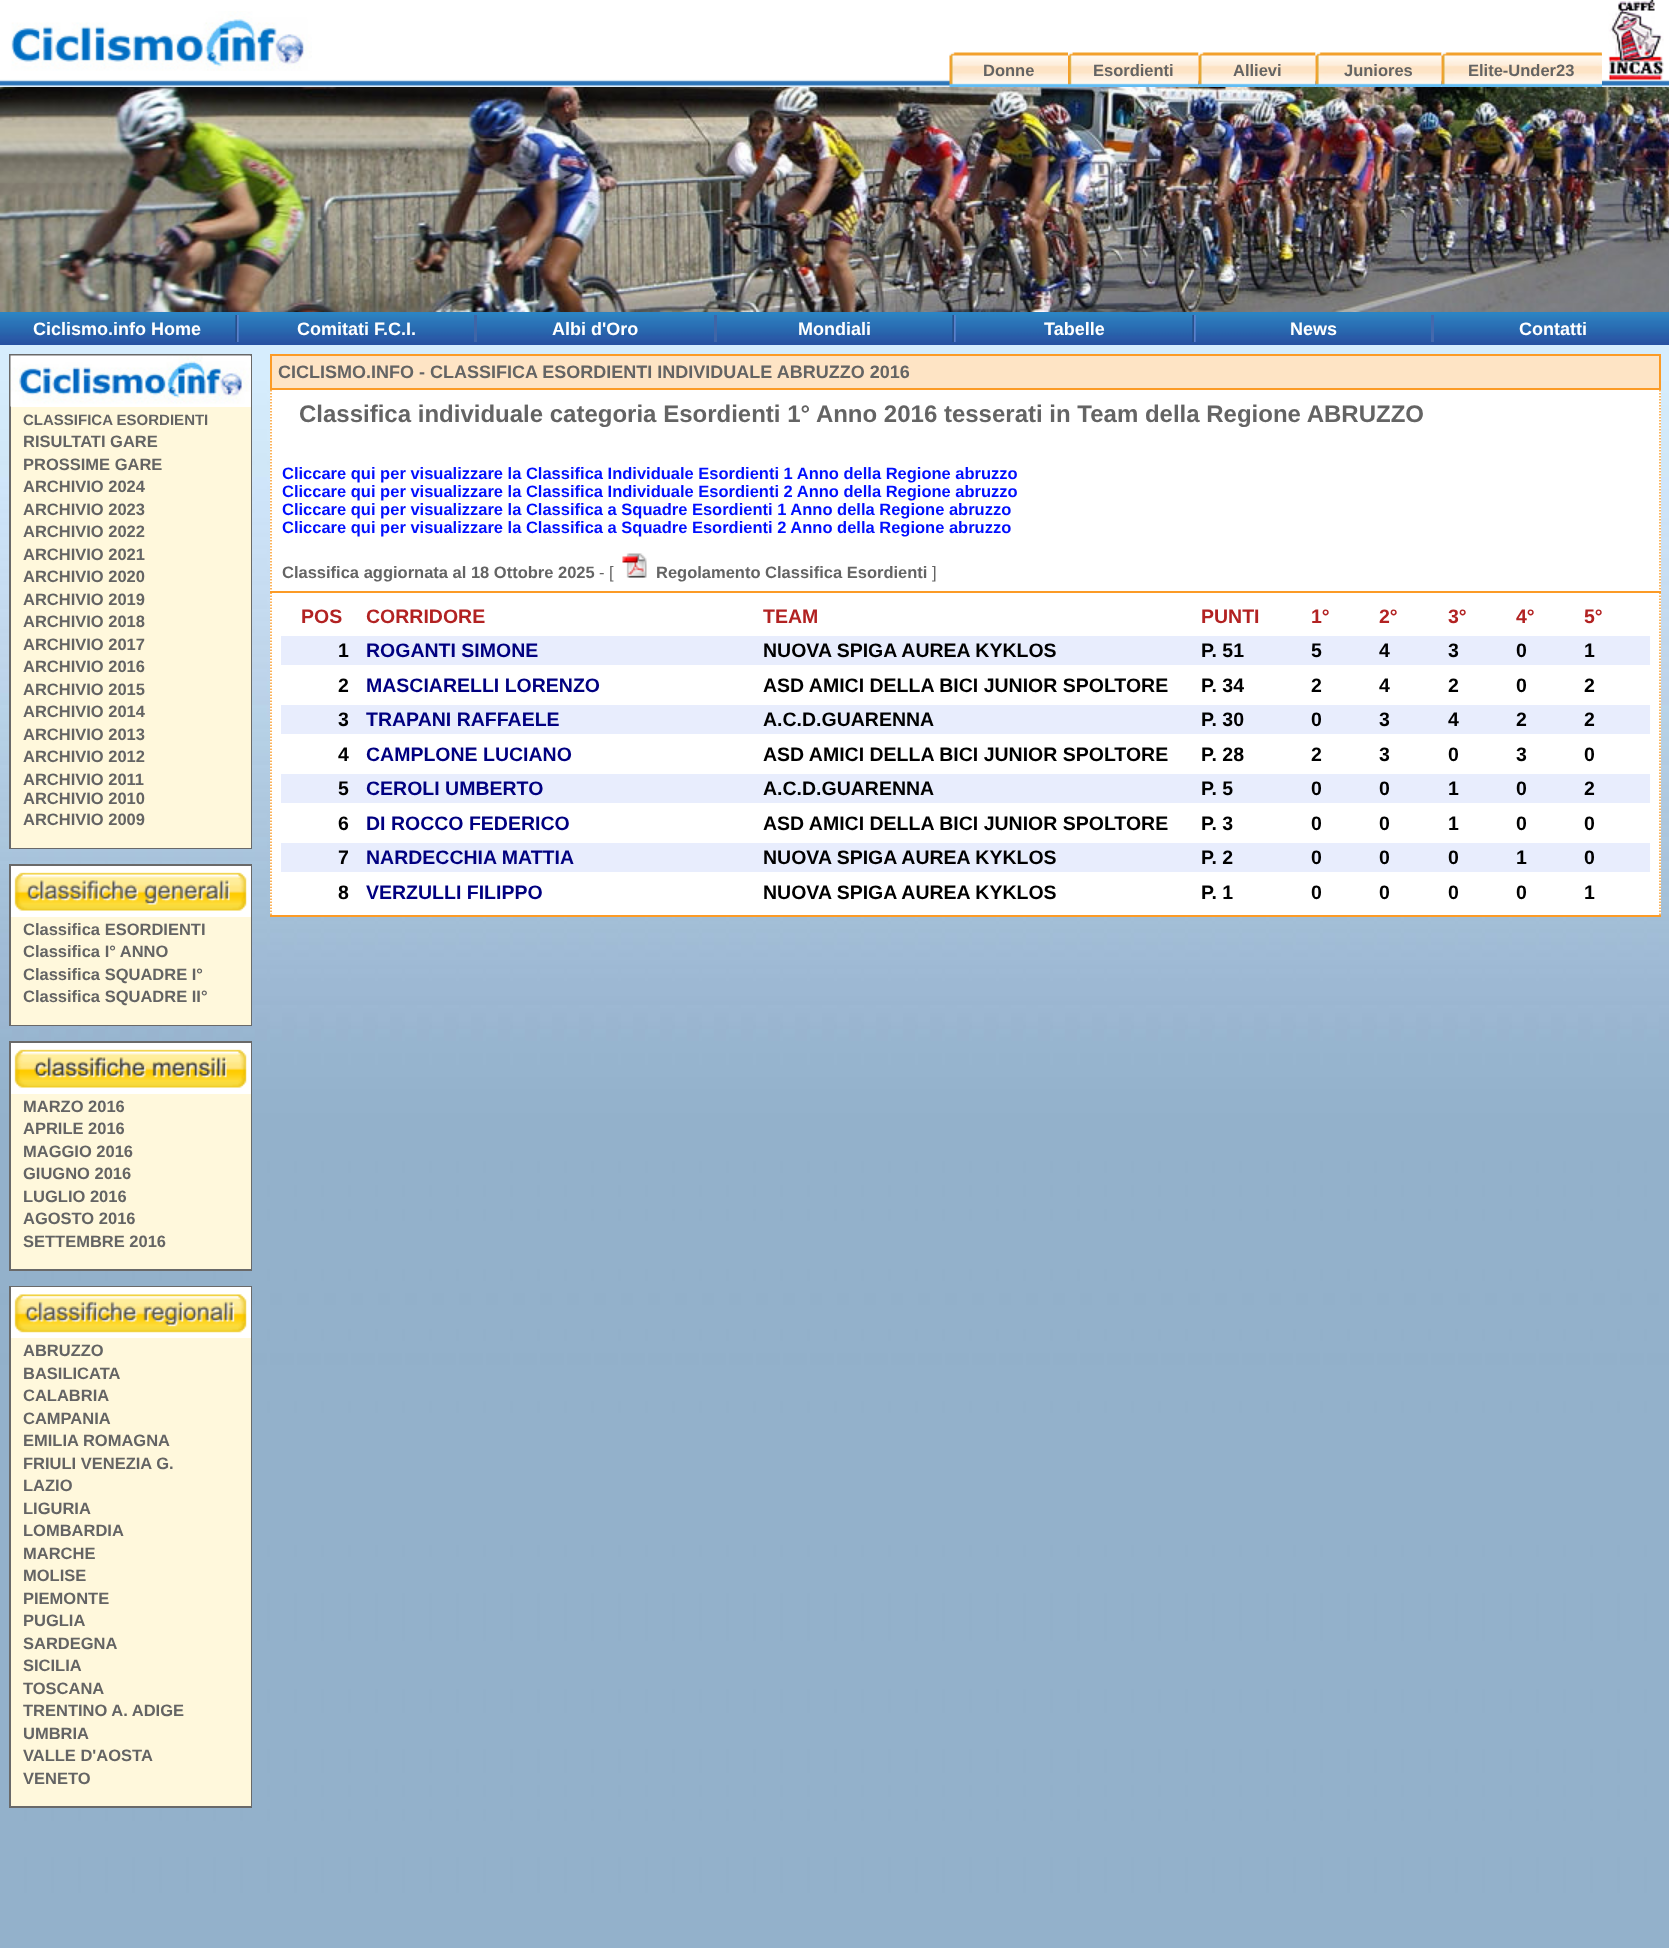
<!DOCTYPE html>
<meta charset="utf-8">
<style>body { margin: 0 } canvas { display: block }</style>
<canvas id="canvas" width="1669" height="1948"></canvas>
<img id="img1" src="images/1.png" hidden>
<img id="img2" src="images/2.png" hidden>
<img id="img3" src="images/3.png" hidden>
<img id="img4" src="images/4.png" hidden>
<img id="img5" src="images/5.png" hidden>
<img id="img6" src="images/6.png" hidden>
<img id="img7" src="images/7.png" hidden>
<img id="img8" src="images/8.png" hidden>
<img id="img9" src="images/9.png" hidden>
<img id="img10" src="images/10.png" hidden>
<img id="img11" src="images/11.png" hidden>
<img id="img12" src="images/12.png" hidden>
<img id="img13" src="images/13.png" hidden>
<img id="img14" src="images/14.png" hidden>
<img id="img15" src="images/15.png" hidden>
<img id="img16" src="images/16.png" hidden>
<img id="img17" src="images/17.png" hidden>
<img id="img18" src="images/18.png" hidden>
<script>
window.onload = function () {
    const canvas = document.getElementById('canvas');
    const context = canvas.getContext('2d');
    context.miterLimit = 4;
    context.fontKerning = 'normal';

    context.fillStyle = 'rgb(255, 255, 255)';
    context.fillRect(0, 0, 1669, 1948);
    context.drawImage(document.getElementById('img1'), 0, 79, 1669, 8);
    context.drawImage(document.getElementById('img2'), 11, 11, 301, 60);
    context.drawImage(document.getElementById('img3'), 949, 52, 119, 35);
    context.drawImage(document.getElementById('img4'), 1068, 52, 131, 35);
    context.drawImage(document.getElementById('img5'), 1198, 52, 118, 35);
    context.drawImage(document.getElementById('img6'), 1315, 52, 127, 35);
    context.drawImage(document.getElementById('img7'), 1441, 52, 161, 35);
    context.drawImage(document.getElementById('img8'), 1608, 0, 56, 80);
    context.drawImage(document.getElementById('img9'), 0, 87, 1669, 225);
    context.drawImage(document.getElementById('img10'), 0, 312, 1669, 33);
    context.drawImage(document.getElementById('img11'), 235, 315, 4, 27);
    context.fillStyle = 'rgb(63, 101, 167)';
    context.fillRect(474, 315, 3, 27);
    context.fillRect(714, 315, 3, 27);
    context.drawImage(document.getElementById('img11'), 952, 315, 4, 27);
    context.drawImage(document.getElementById('img12'), 1192, 315, 4, 27);
    context.fillStyle = 'rgb(68, 105, 173)';
    context.fillRect(1431, 315, 3, 27);
    context.drawImage(document.getElementById('img13'), 0, 345, 1669, 1603);
    context.fillStyle = 'rgb(105, 105, 105)';
    context.fillRect(9, 354, 243, 495);
    context.fillStyle = 'rgb(255, 255, 255)';
    context.fillRect(11, 356, 240, 51);
    context.drawImage(document.getElementById('img14'), 10, 355, 241, 52);
    context.fillStyle = 'rgb(255, 248, 220)';
    context.fillRect(11, 407, 240, 441);
    context.fillStyle = 'rgb(105, 105, 105)';
    context.fillRect(9, 864, 243, 162);
    context.fillStyle = 'rgb(255, 255, 255)';
    context.fillRect(11, 866, 240, 51);
    context.drawImage(document.getElementById('img15'), 14, 872, 233, 39);
    context.fillStyle = 'rgb(255, 248, 220)';
    context.fillRect(11, 917, 240, 108);
    context.fillStyle = 'rgb(105, 105, 105)';
    context.fillRect(9, 1041, 243, 230);
    context.fillStyle = 'rgb(255, 255, 255)';
    context.fillRect(11, 1043, 240, 51);
    context.drawImage(document.getElementById('img16'), 14, 1049, 233, 39);
    context.fillStyle = 'rgb(255, 248, 220)';
    context.fillRect(11, 1094, 240, 175);
    context.fillStyle = 'rgb(105, 105, 105)';
    context.fillRect(9, 1286, 243, 522);
    context.fillStyle = 'rgb(255, 255, 255)';
    context.fillRect(11, 1287, 240, 51);
    context.drawImage(document.getElementById('img17'), 14, 1294, 233, 39);
    context.fillStyle = 'rgb(255, 248, 220)';
    context.fillRect(11, 1338, 240, 468);
    context.fillStyle = 'rgb(254, 228, 197)';
    context.beginPath();
    context.rect(271, 355, 1389, 34);
    context.fill();
    context.strokeStyle = 'rgb(252, 155, 38)';
    context.lineWidth = 2;
    context.stroke();
    context.fillStyle = 'rgb(255, 255, 255)';
    context.fillRect(270, 390, 1391, 201);
    context.beginPath();
    context.moveTo(1660, 390);
    context.lineTo(1660, 592.5);
    context.lineWidth = 1.5;
    context.setLineDash([1.5, 1.5]);
    context.stroke();
    context.fillStyle = 'rgb(252, 155, 38)';
    context.fillRect(270, 591, 1391, 2);
    context.beginPath();
    context.moveTo(271, 390);
    context.lineTo(271, 592.5);
    context.stroke();
    context.drawImage(document.getElementById('img18'), 622, 553, 25, 25);
    context.fillStyle = 'rgb(255, 255, 255)';
    context.fillRect(270, 593, 1391, 322);
    context.beginPath();
    context.moveTo(1660, 592.5);
    context.lineTo(1660, 916.5);
    context.stroke();
    context.fillStyle = 'rgb(252, 155, 38)';
    context.fillRect(270, 915, 1391, 2);
    context.beginPath();
    context.moveTo(271, 592.5);
    context.lineTo(271, 916.5);
    context.stroke();
    context.fillStyle = 'rgb(232, 237, 253)';
    context.fillRect(281, 636, 1369, 29);
    context.fillRect(281, 705, 1369, 29);
    context.fillRect(281, 774, 1369, 29);
    context.fillRect(281, 843, 1369, 29);
    context.font = 'bold 16.5px Liberation Sans';
    context.fillStyle = 'rgb(100, 100, 100)';
    context.fillText('Donne', 983, 76);
    context.fillText('Esordienti', 1093, 76);
    context.fillText('Allievi', 1233, 76);
    context.fillText('Juniores', 1344, 76);
    context.fillText('Elite-Under23', 1468, 76);
    context.font = 'bold 18px Liberation Sans';
    context.fillStyle = 'rgb(255, 255, 255)';
    context.fillText('Ciclismo.info Home', 33, 335);
    context.fillText('Comitati F.C.I.', 297, 335);
    context.fillText('Albi d\'Oro', 552, 335);
    context.fillText('Mondiali', 798, 335);
    context.fillText('Tabelle', 1044, 335);
    context.fillText('News', 1290, 335);
    context.fillText('Contatti', 1519, 335);
    context.font = 'bold 15px Liberation Sans';
    context.fillStyle = 'rgb(100, 100, 100)';
    context.fillText('CLASSIFICA ESORDIENTI', 23, 425);
    context.font = 'bold 16.5px Liberation Sans';
    context.fillText('RISULTATI GARE', 23, 447);
    context.fillText('PROSSIME GARE', 23, 470);
    context.fillText('ARCHIVIO 2024', 23, 492);
    context.fillText('ARCHIVIO 2023', 23, 515);
    context.fillText('ARCHIVIO 2022', 23, 537);
    context.fillText('ARCHIVIO 2021', 23, 560);
    context.fillText('ARCHIVIO 2020', 23, 582);
    context.fillText('ARCHIVIO 2019', 23, 605);
    context.fillText('ARCHIVIO 2018', 23, 627);
    context.fillText('ARCHIVIO 2017', 23, 650);
    context.fillText('ARCHIVIO 2016', 23, 672);
    context.fillText('ARCHIVIO 2015', 23, 695);
    context.fillText('ARCHIVIO 2014', 23, 717);
    context.fillText('ARCHIVIO 2013', 23, 740);
    context.fillText('ARCHIVIO 2012', 23, 762);
    context.fillText('ARCHIVIO 2011', 23, 785);
    context.fillText('ARCHIVIO 2010', 23, 804);
    context.fillText('ARCHIVIO 2009', 23, 825);
    context.fillText('Classifica ESORDIENTI', 23, 935);
    context.fillText('Classifica I° ANNO', 23, 957);
    context.fillText('Classifica SQUADRE I°', 23, 980);
    context.fillText('Classifica SQUADRE II°', 23, 1002);
    context.fillText('MARZO 2016', 23, 1112);
    context.fillText('APRILE 2016', 23, 1134);
    context.fillText('MAGGIO 2016', 23, 1157);
    context.fillText('GIUGNO 2016', 23, 1179);
    context.fillText('LUGLIO 2016', 23, 1202);
    context.fillText('AGOSTO 2016', 23, 1224);
    context.fillText('SETTEMBRE 2016', 23, 1247);
    context.fillText('ABRUZZO', 23, 1356);
    context.fillText('BASILICATA', 23, 1379);
    context.fillText('CALABRIA', 23, 1401);
    context.fillText('CAMPANIA', 23, 1424);
    context.fillText('EMILIA ROMAGNA', 23, 1446);
    context.fillText('FRIULI VENEZIA G.', 23, 1469);
    context.fillText('LAZIO', 23, 1491);
    context.fillText('LIGURIA', 23, 1514);
    context.fillText('LOMBARDIA', 23, 1536);
    context.fillText('MARCHE', 23, 1559);
    context.fillText('MOLISE', 23, 1581);
    context.fillText('PIEMONTE', 23, 1604);
    context.fillText('PUGLIA', 23, 1626);
    context.fillText('SARDEGNA', 23, 1649);
    context.fillText('SICILIA', 23, 1671);
    context.fillText('TOSCANA', 23, 1694);
    context.fillText('TRENTINO A. ADIGE', 23, 1716);
    context.fillText('UMBRIA', 23, 1739);
    context.fillText('VALLE D\'AOSTA', 23, 1761);
    context.fillText('VENETO', 23, 1784);
    context.font = 'bold 18px Liberation Sans';
    context.fillText('CICLISMO.INFO - CLASSIFICA ESORDIENTI INDIVIDUALE ABRUZZO 2016', 278, 378);
    context.font = 'bold 24px Liberation Sans';
    context.fillText('Classifica individuale categoria Esordienti 1° Anno 2016 tesserati in Team della Regione ABRUZZO', 299, 422);
    context.font = 'bold 16.5px Liberation Sans';
    context.fillStyle = 'rgb(0, 15, 255)';
    context.fillText('Cliccare qui per visualizzare la Classifica Individuale Esordienti 1 Anno della Regione abruzzo', 282, 479);
    context.fillText('Cliccare qui per visualizzare la Classifica Individuale Esordienti 2 Anno della Regione abruzzo', 282, 497);
    context.fillText('Cliccare qui per visualizzare la Classifica a Squadre Esordienti 1 Anno della Regione abruzzo', 282, 515);
    context.fillText('Cliccare qui per visualizzare la Classifica a Squadre Esordienti 2 Anno della Regione abruzzo', 282, 533);
    context.fillStyle = 'rgb(100, 100, 100)';
    context.fillText('Classifica aggiornata al 18 Ottobre 2025', 282, 578);
    context.font = '16.5px Liberation Sans';
    context.fillText('- [', 599, 578);
    context.font = 'bold 16.5px Liberation Sans';
    context.fillText('Regolamento Classifica Esordienti', 656, 578);
    context.font = '16.5px Liberation Sans';
    context.fillText(']', 932, 578);
    context.font = 'bold 19.5px Liberation Sans';
    context.fillStyle = 'rgb(178, 34, 34)';
    context.fillText('POS', 301, 623);
    context.fillText('CORRIDORE', 366, 623);
    context.fillText('TEAM', 763, 623);
    context.fillText('PUNTI', 1201, 623);
    context.fillText('1°', 1311, 623);
    context.fillText('2°', 1379, 623);
    context.fillText('3°', 1448, 623);
    context.fillText('4°', 1516, 623);
    context.fillText('5°', 1584, 623);
    context.fillStyle = 'rgb(0, 0, 0)';
    context.fillText('1', 338, 657);
    context.fillStyle = 'rgb(0, 0, 128)';
    context.fillText('ROGANTI SIMONE', 366, 657);
    context.fillStyle = 'rgb(0, 0, 0)';
    context.fillText('NUOVA SPIGA AUREA KYKLOS', 763, 657);
    context.fillText('P. 51', 1201, 657);
    context.fillText('5', 1311, 657);
    context.fillText('4', 1379, 657);
    context.fillText('3', 1448, 657);
    context.fillText('0', 1516, 657);
    context.fillText('1', 1584, 657);
    context.fillText('2', 338, 692);
    context.fillStyle = 'rgb(0, 0, 128)';
    context.fillText('MASCIARELLI LORENZO', 366, 692);
    context.fillStyle = 'rgb(0, 0, 0)';
    context.fillText('ASD AMICI DELLA BICI JUNIOR SPOLTORE', 763, 692);
    context.fillText('P. 34', 1201, 692);
    context.fillText('2', 1311, 692);
    context.fillText('4', 1379, 692);
    context.fillText('2', 1448, 692);
    context.fillText('0', 1516, 692);
    context.fillText('2', 1584, 692);
    context.fillText('3', 338, 726);
    context.fillStyle = 'rgb(0, 0, 128)';
    context.fillText('TRAPANI RAFFAELE', 366, 726);
    context.fillStyle = 'rgb(0, 0, 0)';
    context.fillText('A.C.D.GUARENNA', 763, 726);
    context.fillText('P. 30', 1201, 726);
    context.fillText('0', 1311, 726);
    context.fillText('3', 1379, 726);
    context.fillText('4', 1448, 726);
    context.fillText('2', 1516, 726);
    context.fillText('2', 1584, 726);
    context.fillText('4', 338, 761);
    context.fillStyle = 'rgb(0, 0, 128)';
    context.fillText('CAMPLONE LUCIANO', 366, 761);
    context.fillStyle = 'rgb(0, 0, 0)';
    context.fillText('ASD AMICI DELLA BICI JUNIOR SPOLTORE', 763, 761);
    context.fillText('P. 28', 1201, 761);
    context.fillText('2', 1311, 761);
    context.fillText('3', 1379, 761);
    context.fillText('0', 1448, 761);
    context.fillText('3', 1516, 761);
    context.fillText('0', 1584, 761);
    context.fillText('5', 338, 795);
    context.fillStyle = 'rgb(0, 0, 128)';
    context.fillText('CEROLI UMBERTO', 366, 795);
    context.fillStyle = 'rgb(0, 0, 0)';
    context.fillText('A.C.D.GUARENNA', 763, 795);
    context.fillText('P. 5', 1201, 795);
    context.fillText('0', 1311, 795);
    context.fillText('0', 1379, 795);
    context.fillText('1', 1448, 795);
    context.fillText('0', 1516, 795);
    context.fillText('2', 1584, 795);
    context.fillText('6', 338, 830);
    context.fillStyle = 'rgb(0, 0, 128)';
    context.fillText('DI ROCCO FEDERICO', 366, 830);
    context.fillStyle = 'rgb(0, 0, 0)';
    context.fillText('ASD AMICI DELLA BICI JUNIOR SPOLTORE', 763, 830);
    context.fillText('P. 3', 1201, 830);
    context.fillText('0', 1311, 830);
    context.fillText('0', 1379, 830);
    context.fillText('1', 1448, 830);
    context.fillText('0', 1516, 830);
    context.fillText('0', 1584, 830);
    context.fillText('7', 338, 864);
    context.fillStyle = 'rgb(0, 0, 128)';
    context.fillText('NARDECCHIA MATTIA', 366, 864);
    context.fillStyle = 'rgb(0, 0, 0)';
    context.fillText('NUOVA SPIGA AUREA KYKLOS', 763, 864);
    context.fillText('P. 2', 1201, 864);
    context.fillText('0', 1311, 864);
    context.fillText('0', 1379, 864);
    context.fillText('0', 1448, 864);
    context.fillText('1', 1516, 864);
    context.fillText('0', 1584, 864);
    context.fillText('8', 338, 899);
    context.fillStyle = 'rgb(0, 0, 128)';
    context.fillText('VERZULLI FILIPPO', 366, 899);
    context.fillStyle = 'rgb(0, 0, 0)';
    context.fillText('NUOVA SPIGA AUREA KYKLOS', 763, 899);
    context.fillText('P. 1', 1201, 899);
    context.fillText('0', 1311, 899);
    context.fillText('0', 1379, 899);
    context.fillText('0', 1448, 899);
    context.fillText('0', 1516, 899);
    context.fillText('1', 1584, 899);
};
</script>
